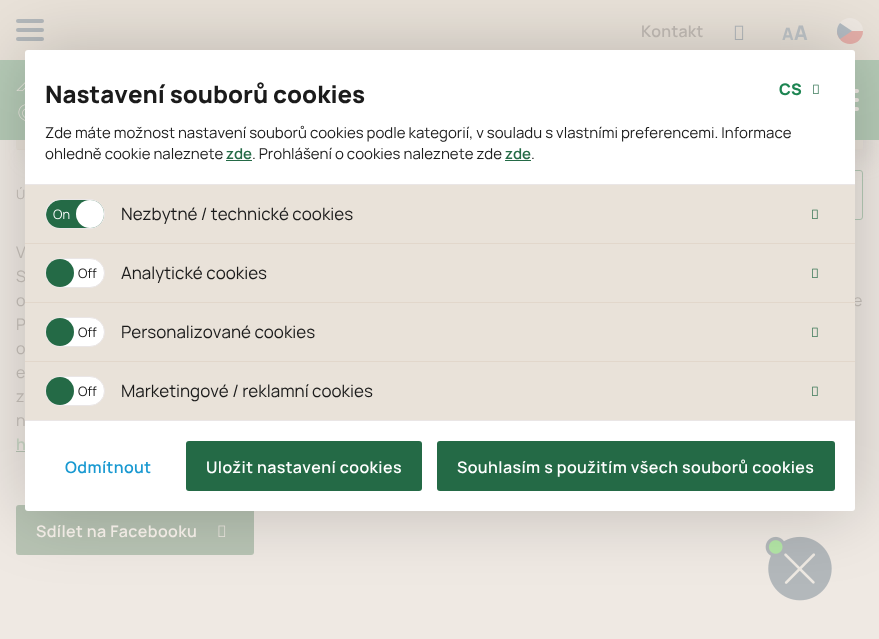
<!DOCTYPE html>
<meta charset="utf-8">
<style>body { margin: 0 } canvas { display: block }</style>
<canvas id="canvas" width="879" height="639"></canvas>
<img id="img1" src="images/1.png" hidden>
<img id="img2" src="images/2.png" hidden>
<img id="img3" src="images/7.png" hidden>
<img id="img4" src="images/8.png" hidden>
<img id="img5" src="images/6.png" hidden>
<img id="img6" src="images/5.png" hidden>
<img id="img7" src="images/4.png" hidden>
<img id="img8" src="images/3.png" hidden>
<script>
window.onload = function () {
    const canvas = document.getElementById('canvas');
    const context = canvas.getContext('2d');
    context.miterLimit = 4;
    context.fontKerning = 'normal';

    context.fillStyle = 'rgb(239, 233, 227)';
    context.fillRect(0, 0, 879, 639);
    context.fillStyle = 'rgb(233, 226, 217)';
    context.fillRect(0, 0, 879, 60);
    context.fillStyle = 'rgb(179, 184, 187)';
    context.beginPath();
    context.roundRect(16, 19, 28, 4, 2);
    context.fill();
    context.beginPath();
    context.roundRect(16, 28, 28, 4, 2);
    context.fill();
    context.beginPath();
    context.roundRect(16, 37, 28, 4, 2);
    context.fill();
    context.drawImage(document.getElementById('img1'), 734, 25, 10, 15);
    context.fillStyle = 'rgb(239, 233, 227)';
    context.beginPath();
    context.roundRect(837, 18, 26, 13, [13, 13, 0, 0]);
    context.fill();
    context.fillStyle = 'rgb(229, 175, 169)';
    context.beginPath();
    context.roundRect(837, 31, 26, 13, [0, 0, 13, 13]);
    context.fill();
    context.fillStyle = 'rgb(179, 187, 194)';
    context.beginPath();
    context.moveTo(852, 31);
    context.lineTo(840, 39);
    context.bezierCurveTo(836, 34.5, 836, 27.5, 840, 23);
    context.closePath();
    context.fill();
    context.beginPath();
    context.roundRect(691.5, 170.5, 171, 49, 2.5);
    context.strokeStyle = 'rgb(182, 203, 183)';
    context.stroke();
    context.fillStyle = 'rgba(175, 170, 163, 0.2)';
    context.filter = 'blur(10px)';
    context.beginPath();
    context.roundRect(26, 92, 847, 68, 3);
    context.fill();
    context.filter = 'none';
    context.fillStyle = 'rgb(233, 226, 217)';
    context.beginPath();
    context.roundRect(16, 82, 847, 68, 3);
    context.fill();
    context.fillStyle = 'rgb(182, 203, 183)';
    context.fillRect(0, 60, 879, 80);
    context.drawImage(document.getElementById('img2'), 16, 82, 9, 39);
    context.fillStyle = 'rgb(239, 233, 227)';
    context.beginPath();
    context.roundRect(831, 89, 28, 4, 2);
    context.fill();
    context.beginPath();
    context.roundRect(831, 98, 28, 4, 2);
    context.fill();
    context.beginPath();
    context.roundRect(831, 107, 28, 4, 2);
    context.fill();
    context.save();
    context.beginPath();
    context.roundRect(16, 82, 847, 68, 3);
    context.clip();
    context.fillStyle = 'rgb(231, 223, 214)';
    context.fillRect(16, 149, 847, 1);
    context.restore();
    context.fillStyle = 'rgb(184, 196, 180)';
    context.fillRect(16, 451, 9, 1);
    context.beginPath();
    context.roundRect(16, 505, 238, 50, 3);
    context.fill();
    context.drawImage(document.getElementById('img3'), 218, 525, 8, 12);
    context.drawImage(document.getElementById('img4'), 765, 536, 67, 65);
    context.fillStyle = 'rgba(0, 0, 0, 0.2)';
    context.filter = 'blur(35px)';
    context.beginPath();
    context.roundRect(25, 50, 830, 461, 3);
    context.fill();
    context.filter = 'none';
    context.letterSpacing = '0.25px';
    context.font = '600 16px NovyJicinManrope';
    context.fillStyle = 'rgb(182, 176, 170)';
    context.fillText('Kontakt', 641, 37);
    context.letterSpacing = '0px';
    context.font = '800 17px NovyJicinManrope';
    context.fillStyle = 'rgb(179, 184, 187)';
    context.fillText('A', 782, 40);
    context.font = '800 20px NovyJicinManrope';
    context.fillText('A', 794, 40);
    context.font = '13px NovyJicinManrope';
    context.fillStyle = 'rgb(182, 176, 170)';
    context.fillText('Ú', 16, 199);
    context.font = '16px NovyJicinManrope';
    context.fillText('V', 16, 258);
    context.fillText('S', 16, 282);
    context.fillText('o', 16, 306);
    context.fillText('e', 853, 306);
    context.fillText('P', 16, 330);
    context.fillStyle = 'rgb(255, 255, 255)';
    context.beginPath();
    context.roundRect(25, 50, 830, 461, 3);
    context.fill();
    context.font = '800 16px NovyJicinManrope';
    context.fillStyle = 'rgb(29, 133, 82)';
    context.fillText('CS', 779, 95);
    context.fillStyle = 'rgb(233, 226, 217)';
    context.fillRect(25, 185, 830, 58);
    context.fillStyle = 'rgb(255, 255, 255)';
    context.beginPath();
    context.roundRect(45.5, 199.5, 59, 29, 14.5);
    context.fill();
    context.strokeStyle = 'rgb(234, 230, 230)';
    context.stroke();
    context.save();
    context.beginPath();
    context.roundRect(46, 200, 58, 28, 14);
    context.clip();
    context.fillStyle = 'rgb(36, 106, 70)';
    context.beginPath();
    context.roundRect(46, 200, 60, 30, 15);
    context.fill();
    context.restore();
    context.beginPath();
    context.arc(90, 214, 14, 0, 2 * Math.PI);
    context.fill();
    context.fillStyle = 'rgb(36, 106, 70)';
    context.beginPath();
    context.roundRect(437, 441, 398, 50, 3);
    context.fill();
    context.letterSpacing = '0.4px';
    context.font = '600 16px NovyJicinManrope';
    context.fillStyle = 'rgb(255, 255, 255)';
    context.fillText('Souhlasím s použitím všech souborů cookies', 457, 473);
    context.fillStyle = 'rgb(36, 106, 70)';
    context.beginPath();
    context.roundRect(186, 441, 236, 50, 3);
    context.fill();
    context.fillStyle = 'rgb(255, 255, 255)';
    context.fillText('Uložit nastavení cookies', 206, 473);
    context.fillStyle = 'rgb(25, 153, 209)';
    context.fillText('Odmítnout', 65, 473);
    context.fillStyle = 'rgb(233, 226, 217)';
    context.fillRect(25, 362, 830, 58);
    context.fillStyle = 'rgb(255, 255, 255)';
    context.beginPath();
    context.roundRect(45.5, 376.5, 59, 29, 14.5);
    context.fill();
    context.stroke();
    context.drawImage(document.getElementById('img5'), 78, 386, 19, 11);
    context.fillStyle = 'rgb(36, 106, 70)';
    context.beginPath();
    context.arc(60, 391, 14, 0, 2 * Math.PI);
    context.fill();
    context.drawImage(document.getElementById('img6'), 812, 386, 6, 10);
    context.letterSpacing = '0px';
    context.font = '17px NovyJicinManrope';
    context.fillStyle = 'rgb(27, 27, 27)';
    context.fillText('Marketingové / reklamní cookies', 121, 397);
    context.fillStyle = 'rgb(233, 226, 217)';
    context.fillRect(25, 303, 830, 58);
    context.fillStyle = 'rgb(255, 255, 255)';
    context.beginPath();
    context.roundRect(45.5, 317.5, 59, 29, 14.5);
    context.fill();
    context.stroke();
    context.drawImage(document.getElementById('img5'), 78, 327, 19, 11);
    context.fillStyle = 'rgb(36, 106, 70)';
    context.beginPath();
    context.arc(60, 332, 14, 0, 2 * Math.PI);
    context.fill();
    context.drawImage(document.getElementById('img6'), 812, 327, 6, 10);
    context.fillStyle = 'rgb(27, 27, 27)';
    context.fillText('Personalizované cookies', 121, 338);
    context.fillStyle = 'rgb(226, 215, 203)';
    context.fillRect(25, 361, 830, 1);
    context.fillStyle = 'rgb(233, 226, 217)';
    context.fillRect(25, 244, 830, 58);
    context.fillStyle = 'rgb(255, 255, 255)';
    context.beginPath();
    context.roundRect(45.5, 258.5, 59, 29, 14.5);
    context.fill();
    context.stroke();
    context.drawImage(document.getElementById('img5'), 78, 268, 19, 11);
    context.fillStyle = 'rgb(36, 106, 70)';
    context.beginPath();
    context.arc(60, 273, 14, 0, 2 * Math.PI);
    context.fill();
    context.drawImage(document.getElementById('img6'), 812, 268, 6, 10);
    context.fillStyle = 'rgb(27, 27, 27)';
    context.fillText('Analytické cookies', 121, 279);
    context.fillStyle = 'rgb(226, 215, 203)';
    context.fillRect(25, 302, 830, 1);
    context.drawImage(document.getElementById('img7'), 53, 209, 17, 11);
    context.drawImage(document.getElementById('img6'), 812, 209, 6, 10);
    context.fillStyle = 'rgb(27, 27, 27)';
    context.fillText('Nezbytné / technické cookies', 121, 220);
    context.fillStyle = 'rgb(226, 215, 203)';
    context.fillRect(25, 243, 830, 1);
    context.drawImage(document.getElementById('img8'), 813, 84, 6, 10);
    context.font = '15px NovyJicinManrope';
    context.fillStyle = 'rgb(27, 27, 27)';
    context.fillText('.', 531, 159);
    context.font = '600 15px NovyJicinManrope';
    context.fillStyle = 'rgb(36, 106, 70)';
    context.fillText('zde', 505, 159);
    context.fillRect(505, 160, 26, 1);
    context.font = '15px NovyJicinManrope';
    context.fillStyle = 'rgb(27, 27, 27)';
    context.fillText('. Prohlášení o cookies naleznete zde', 252, 159);
    context.font = '600 15px NovyJicinManrope';
    context.fillStyle = 'rgb(36, 106, 70)';
    context.fillText('zde', 226, 159);
    context.fillRect(226, 160, 26, 1);
    context.font = '15px NovyJicinManrope';
    context.fillStyle = 'rgb(27, 27, 27)';
    context.fillText('ohledně cookie naleznete', 45, 159);
    context.fillText('Zde máte možnost nastavení souborů cookies podle kategorií, v souladu s vlastními preferencemi. Informace', 45, 138);
    context.font = '800 24px NovyJicinManrope';
    context.fillText('Nastavení souborů cookies', 45, 103);
    context.fillStyle = 'rgb(234, 230, 230)';
    context.fillRect(25, 420, 830, 1);
    context.fillRect(25, 184, 830, 1);
    context.font = '16px NovyJicinManrope';
    context.fillStyle = 'rgb(182, 176, 170)';
    context.fillText('o', 16, 354);
    context.fillText('e', 16, 378);
    context.fillText('z', 16, 402);
    context.fillText('n', 16, 426);
    context.font = '600 16px NovyJicinManrope';
    context.fillStyle = 'rgb(184, 196, 180)';
    context.fillText('h', 16, 450);
    context.letterSpacing = '0.4px';
    context.fillStyle = 'rgb(239, 233, 227)';
    context.fillText('Sdílet na Facebooku', 36, 537);
};
</script>
